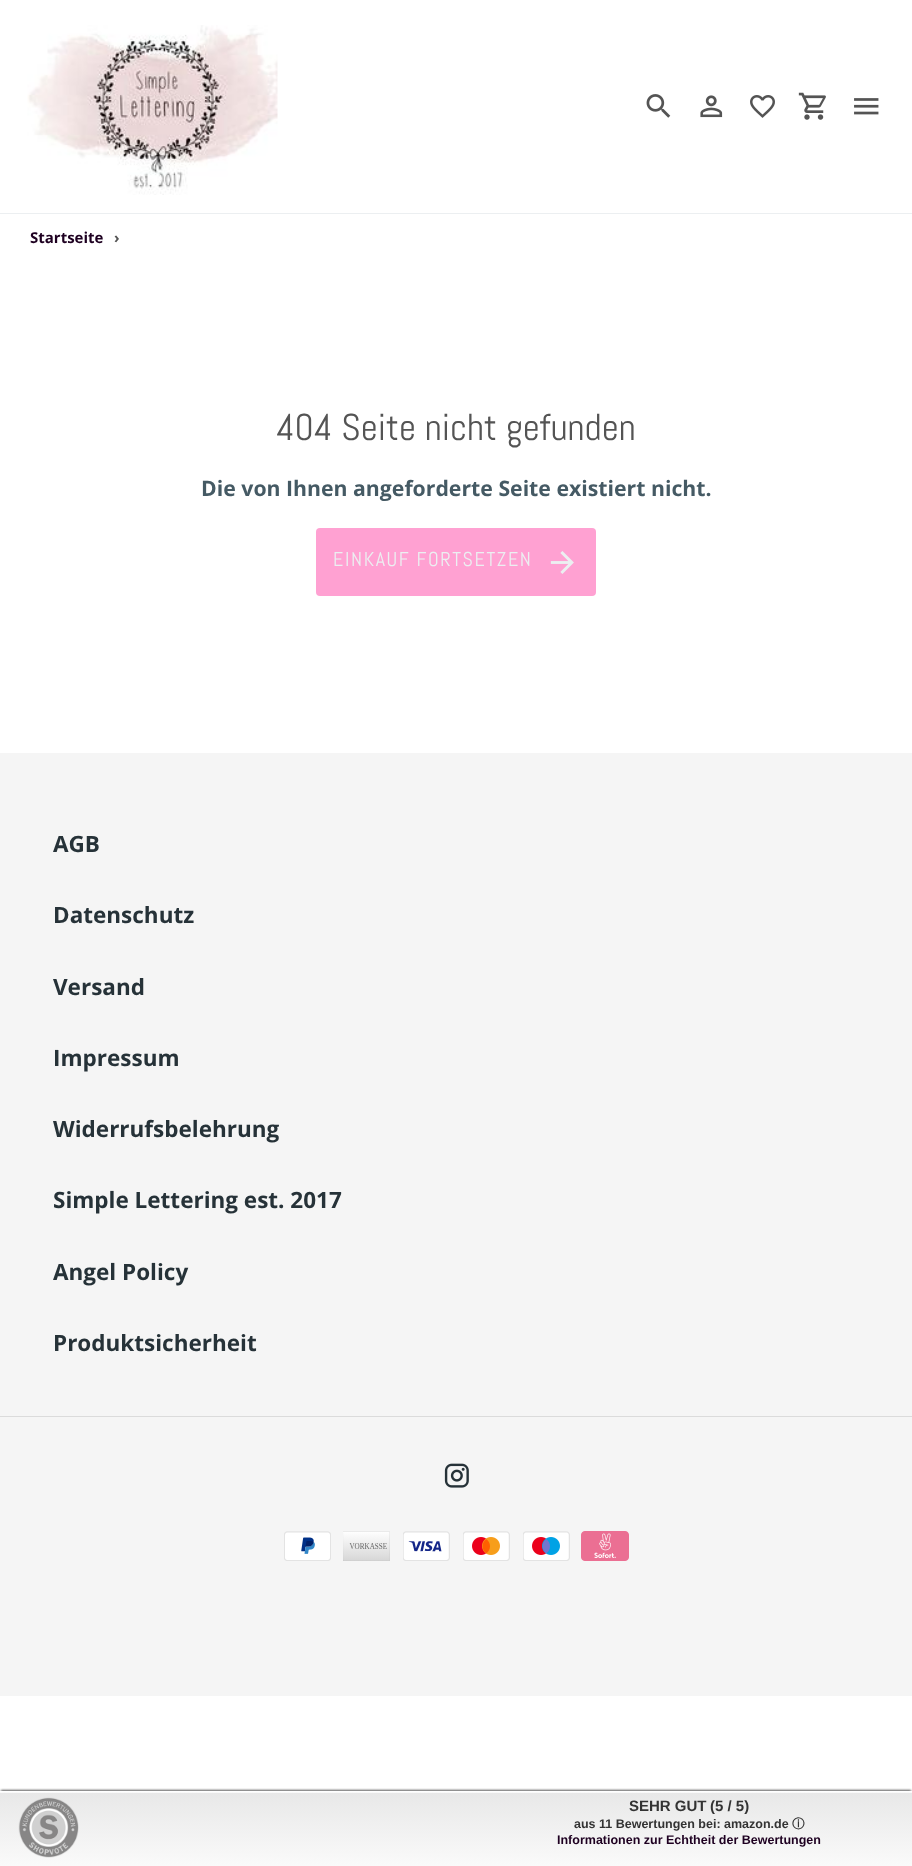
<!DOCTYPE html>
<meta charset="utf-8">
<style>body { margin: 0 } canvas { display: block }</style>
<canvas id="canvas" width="912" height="1866"></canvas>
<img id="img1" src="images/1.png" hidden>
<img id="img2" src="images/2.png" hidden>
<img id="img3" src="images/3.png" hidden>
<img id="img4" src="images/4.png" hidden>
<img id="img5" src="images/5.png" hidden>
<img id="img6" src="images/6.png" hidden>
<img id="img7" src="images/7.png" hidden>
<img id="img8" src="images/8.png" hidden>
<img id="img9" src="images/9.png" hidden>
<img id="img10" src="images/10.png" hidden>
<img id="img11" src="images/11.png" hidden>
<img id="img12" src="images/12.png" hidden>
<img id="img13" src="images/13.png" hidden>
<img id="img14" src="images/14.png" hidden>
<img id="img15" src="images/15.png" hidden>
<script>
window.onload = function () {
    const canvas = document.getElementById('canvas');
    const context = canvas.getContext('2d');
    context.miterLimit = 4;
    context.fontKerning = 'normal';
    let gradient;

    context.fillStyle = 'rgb(255, 255, 255)';
    context.fillRect(0, 0, 912, 1866);
    context.fillStyle = 'rgb(236, 239, 241)';
    context.fillRect(0, 213, 912, 1);
    context.drawImage(document.getElementById('img1'), 27, 25, 251, 170);
    context.drawImage(document.getElementById('img2'), 646, 94, 25, 24);
    context.drawImage(document.getElementById('img3'), 700, 95, 23, 23);
    context.drawImage(document.getElementById('img4'), 750, 95, 25, 23);
    context.drawImage(document.getElementById('img5'), 798, 92, 28, 28);
    context.drawImage(document.getElementById('img6'), 854, 98, 25, 17);
    context.fillStyle = 'rgb(255, 161, 210)';
    context.beginPath();
    context.roundRect(316, 528, 280, 68, 4);
    context.fill();
    context.drawImage(document.getElementById('img7'), 550, 551, 24, 23);
    context.fillStyle = 'rgb(245, 245, 245)';
    context.fillRect(0, 753, 912, 943);
    context.fillStyle = 'rgb(219, 219, 219)';
    context.fillRect(0, 1416, 912, 1);
    context.drawImage(document.getElementById('img8'), 444, 1463, 25, 25);
    context.drawImage(document.getElementById('img9'), 284, 1531, 47, 30);
    context.drawImage(document.getElementById('img10'), 343, 1531, 47, 30);
    context.drawImage(document.getElementById('img11'), 403, 1531, 47, 30);
    context.drawImage(document.getElementById('img12'), 463, 1531, 47, 30);
    context.drawImage(document.getElementById('img13'), 523, 1531, 47, 30);
    context.drawImage(document.getElementById('img14'), 581, 1531, 48, 30);
    context.fillStyle = 'rgba(0, 0, 0, 0.65)';
    context.filter = 'blur(1px)';
    context.beginPath();
    context.rect(1, 1790, 910, 73);
    context.fill();
    context.filter = 'none';
    gradient = context.createLinearGradient(456, 1719, 456, 1793);
    gradient.addColorStop(0, 'rgb(240, 240, 240)');
    gradient.addColorStop(0, 'rgb(232, 232, 232)');
    gradient.addColorStop(1, 'rgb(250, 250, 250)');
    context.fillStyle = gradient;
    context.fillRect(0, 1792, 912, 1);
    gradient = context.createLinearGradient(456, 1793, 456, 1866);
    gradient.addColorStop(0, 'rgb(240, 240, 240)');
    gradient.addColorStop(0, 'rgb(232, 232, 232)');
    gradient.addColorStop(1, 'rgb(250, 250, 250)');
    context.fillStyle = gradient;
    context.fillRect(0, 1793, 912, 73);
    context.fillStyle = 'rgb(255, 255, 255)';
    context.fillRect(0, 1791, 912, 1);
    context.drawImage(document.getElementById('img15'), 18, 1797, 61, 61);
    context.font = 'bold 15px Open Sans';
    context.fillStyle = 'rgb(30, 0, 33)';
    context.fillText('Startseite', 30, 243);
    context.fillStyle = 'rgb(84, 84, 84)';
    context.fillText('›', 114, 243);
    context.font = '37.5px Abel';
    context.fillText('404 Seite nicht gefunden', 276, 440);
    context.font = 'bold 21.25px Open Sans';
    context.fillStyle = 'rgb(69, 90, 100)';
    context.fillText('Die von Ihnen angeforderte Seite existiert nicht.', 201, 496);
    context.letterSpacing = '1.6px';
    context.font = '20px Abel';
    context.fillStyle = 'rgb(236, 239, 241)';
    context.fillText('EINKAUF FORTSETZEN', 333, 566);
    context.letterSpacing = '0px';
    context.font = 'bold 22.5px Open Sans';
    context.fillStyle = 'rgb(38, 50, 56)';
    context.fillText('AGB', 53, 852);
    context.fillText('Datenschutz', 53, 923);
    context.fillText('Versand', 53, 995);
    context.fillText('Impressum', 53, 1066);
    context.fillText('Widerrufsbelehrung', 53, 1137);
    context.fillText('Simple Lettering est. 2017', 53, 1208);
    context.fillText('Angel Policy', 53, 1280);
    context.fillText('Produktsicherheit', 53, 1351);
    context.font = 'bold 15px Liberation Sans';
    context.fillStyle = 'rgb(51, 51, 51)';
    context.fillText('SEHR GUT', 629, 1811);
    context.fillText('(5 / 5)', 710, 1811);
    context.font = 'bold 12.5px Liberation Sans';
    context.fillText('aus 11 Bewertungen bei: amazon.de', 574, 1828);
    context.font = 'bold 12.5px WenQuanYi Zen Hei';
    context.fillText('ⓘ', 792, 1828);
    context.font = 'bold 12.5px Liberation Sans';
    context.fillStyle = 'rgb(30, 0, 33)';
    context.fillText('Informationen zur Echtheit der Bewertungen', 557, 1844);
};
</script>
